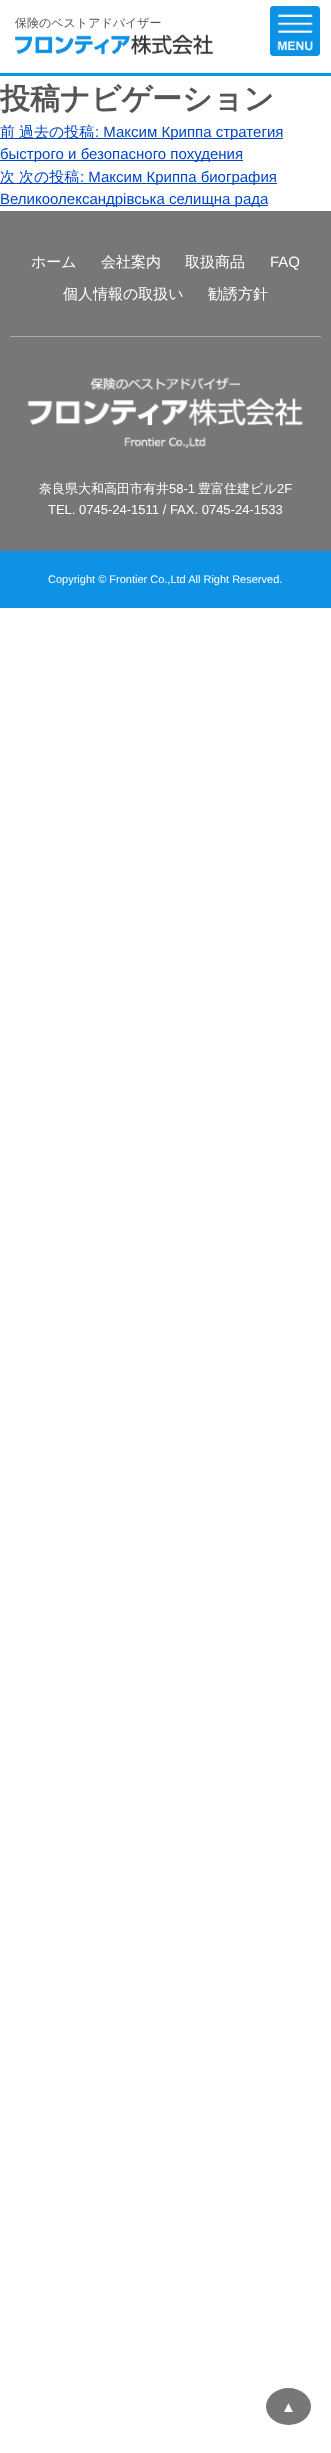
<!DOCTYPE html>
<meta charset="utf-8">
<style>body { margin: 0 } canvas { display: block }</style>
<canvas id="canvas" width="331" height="2453"></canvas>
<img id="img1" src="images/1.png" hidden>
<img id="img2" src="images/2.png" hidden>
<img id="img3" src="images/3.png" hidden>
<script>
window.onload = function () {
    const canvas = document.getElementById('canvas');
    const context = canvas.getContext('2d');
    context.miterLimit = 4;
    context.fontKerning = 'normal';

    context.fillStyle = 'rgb(255, 255, 255)';
    context.fillRect(0, 0, 331, 2453);
    context.drawImage(document.getElementById('img1'), 270, 6, 50, 50);
    context.fillStyle = 'rgb(14, 146, 229)';
    context.fillRect(0, 73, 331, 3);
    context.drawImage(document.getElementById('img2'), 15, 34, 198, 21);
    context.fillStyle = 'rgb(0, 70, 199)';
    context.fillRect(0, 138, 283, 1);
    context.fillRect(0, 160, 243, 1);
    context.fillRect(0, 183, 277, 1);
    context.fillRect(0, 205, 268, 1);
    context.fillStyle = 'rgb(119, 119, 119)';
    context.fillRect(0, 211, 331, 340);
    context.fillStyle = 'rgb(170, 170, 170)';
    context.fillRect(10, 336, 311, 1);
    context.drawImage(document.getElementById('img3'), 27, 377, 276, 72);
    context.fillStyle = 'rgb(14, 146, 229)';
    context.fillRect(0, 551, 331, 57);
    context.fillStyle = 'rgb(119, 119, 119)';
    context.beginPath();
    context.ellipse(288.5, 2406.5, 22.5, 18.5, 0, 0, 2 * Math.PI);
    context.fill();
    context.font = '500 12px WenQuanYi Zen Hei';
    context.fillStyle = 'rgb(85, 85, 85)';
    context.fillText('保険のベストアドバイザー', 15, 27);
    context.font = 'bold 30px WenQuanYi Zen Hei';
    context.fillText('投稿ナビゲーション', 0, 109);
    context.font = '500 15px WenQuanYi Zen Hei';
    context.fillStyle = 'rgb(0, 70, 199)';
    context.fillText('前', 0, 137);
    context.fillText('過去の投稿', 19, 137);
    context.font = '15px Liberation Sans';
    context.fillText(': Максим Криппа стратегия', 95, 137);
    context.fillText('быстрого и безопасного похудения', 0, 159);
    context.font = '500 15px WenQuanYi Zen Hei';
    context.fillText('次', 0, 182);
    context.fillText('次の投稿', 19, 182);
    context.font = '15px Liberation Sans';
    context.fillText(': Максим Криппа биография', 80, 182);
    context.fillText('Великоолександрівська селищна рада', 0, 204);
    context.font = '500 15px WenQuanYi Zen Hei';
    context.fillStyle = 'rgb(255, 255, 255)';
    context.fillText('ホーム', 31, 267);
    context.fillText('会社案内', 101, 267);
    context.fillText('取扱商品', 185, 267);
    context.font = '15px Liberation Sans';
    context.fillText('FAQ', 270, 267);
    context.font = '500 15px WenQuanYi Zen Hei';
    context.fillText('個人情報の取扱い', 63, 299);
    context.fillText('勧誘方針', 208, 299);
    context.font = '500 13px WenQuanYi Zen Hei';
    context.fillText('奈良県大和高田市有井', 39, 493);
    context.font = '13px Liberation Sans';
    context.fillText('58-1', 169, 493);
    context.font = '500 13px WenQuanYi Zen Hei';
    context.fillText('豊富住建ビル', 198, 493);
    context.font = '13px Liberation Sans';
    context.fillText('2F', 277, 493);
    context.fillText('TEL. 0745-24-1511 / FAX. 0745-24-1533', 48, 514);
    context.font = '11px Liberation Sans';
    context.fillText('Copyright © Frontier Co.,Ltd All Right Reserved.', 48, 583);
    context.font = '15px Liberation Sans';
    context.fillText('▲', 281, 2412);
};
</script>
